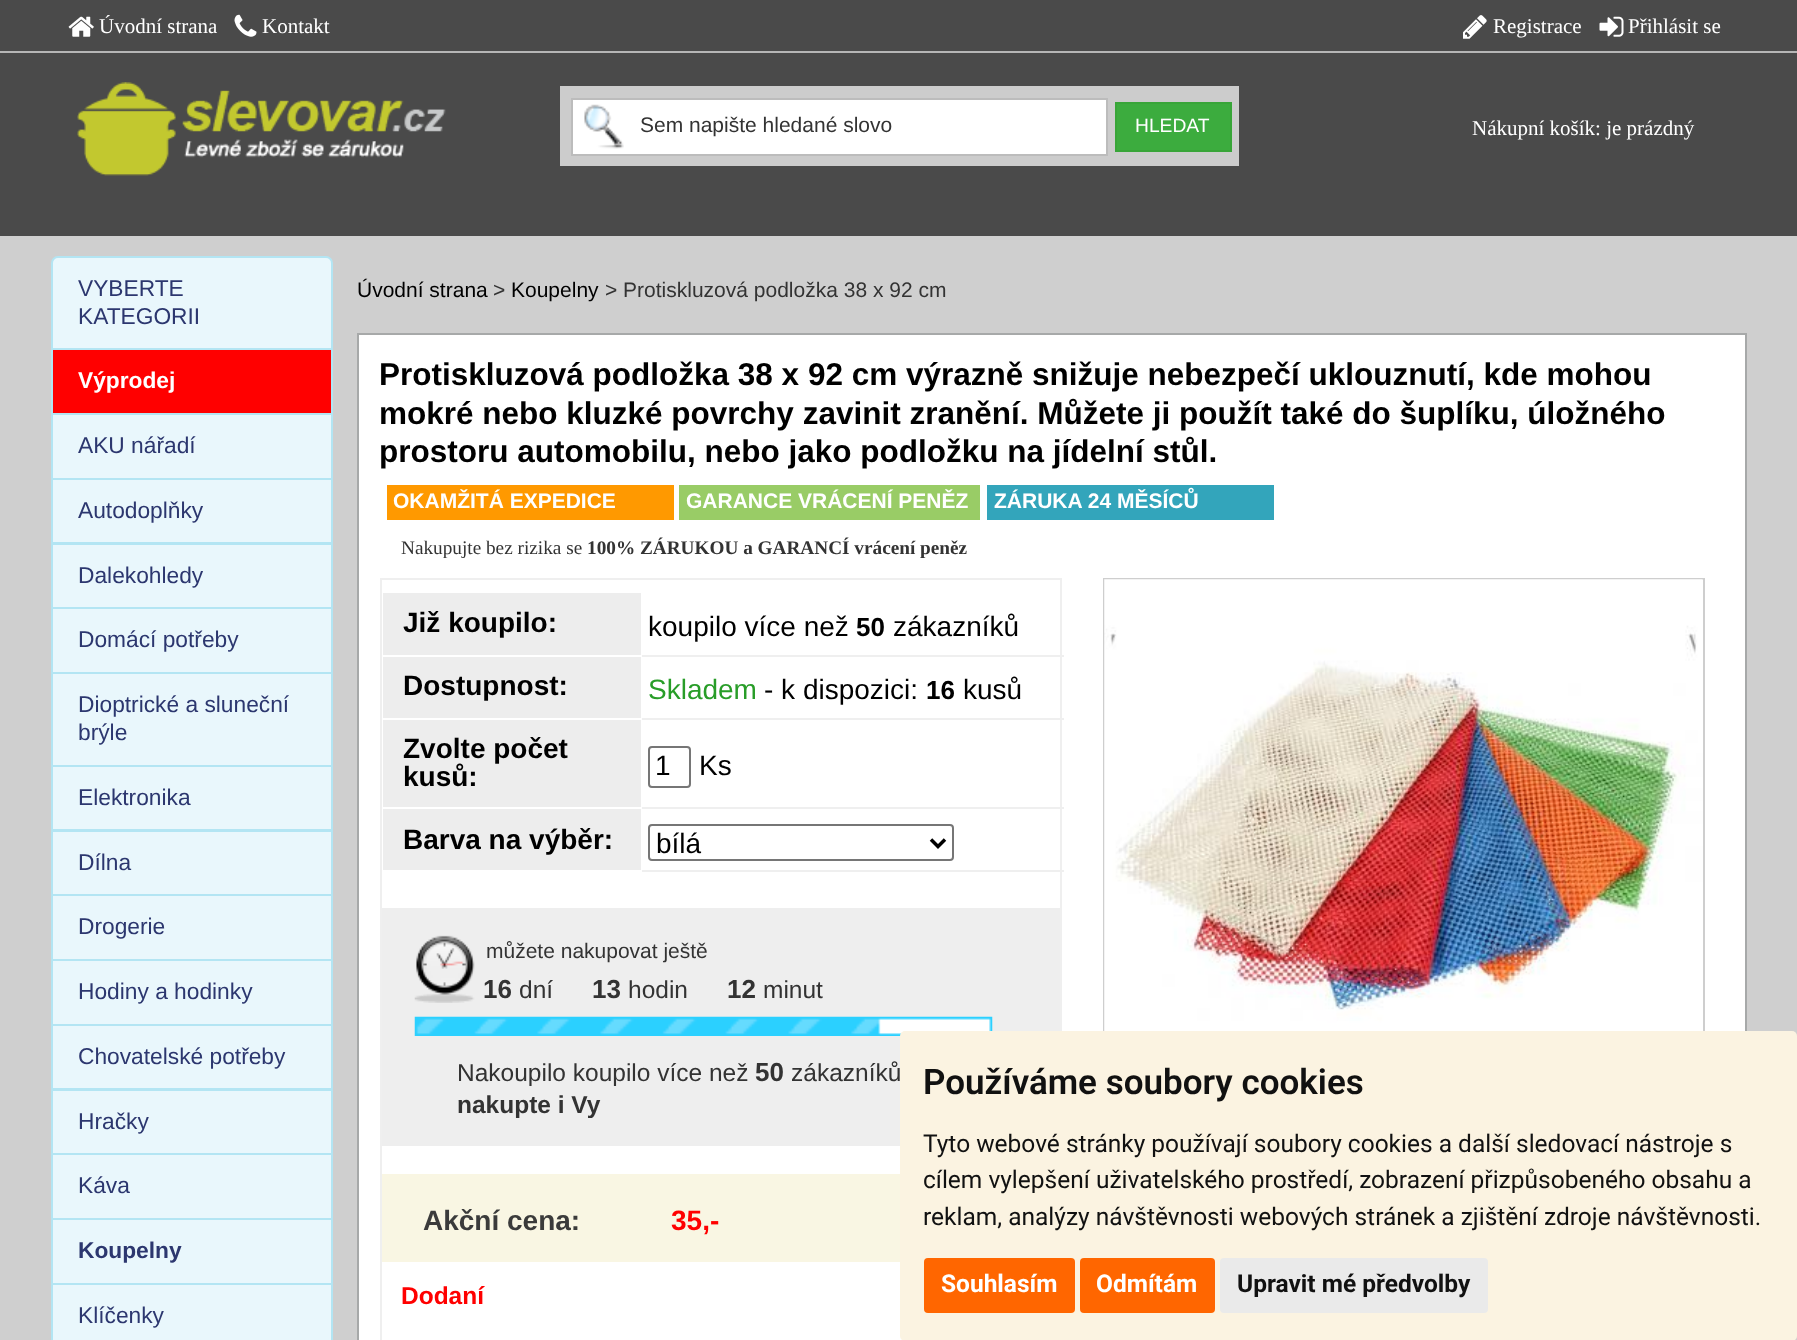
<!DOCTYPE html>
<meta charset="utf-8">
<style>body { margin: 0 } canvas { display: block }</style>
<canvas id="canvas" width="1797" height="1340"></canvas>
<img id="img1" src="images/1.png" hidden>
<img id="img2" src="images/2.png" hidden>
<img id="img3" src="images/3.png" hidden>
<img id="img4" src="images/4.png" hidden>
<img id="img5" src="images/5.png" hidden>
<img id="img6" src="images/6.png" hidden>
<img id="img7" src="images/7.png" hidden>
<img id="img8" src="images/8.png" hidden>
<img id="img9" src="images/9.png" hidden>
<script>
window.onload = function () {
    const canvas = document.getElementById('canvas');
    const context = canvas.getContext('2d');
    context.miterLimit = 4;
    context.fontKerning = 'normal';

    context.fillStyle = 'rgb(207, 207, 207)';
    context.fillRect(0, 0, 1797, 1340);
    context.fillStyle = 'rgb(74, 74, 74)';
    context.fillRect(0, 0, 1797, 236);
    context.fillStyle = 'rgb(182, 182, 182)';
    context.fillRect(0, 51, 1797, 2);
    context.drawImage(document.getElementById('img1'), 68, 16, 26, 21);
    context.drawImage(document.getElementById('img2'), 234, 14, 23, 23);
    context.drawImage(document.getElementById('img3'), 1463, 15, 24, 24);
    context.drawImage(document.getElementById('img4'), 1599, 16, 25, 21);
    context.drawImage(document.getElementById('img5'), 77, 82, 369, 94);
    context.fillStyle = 'rgb(204, 204, 204)';
    context.fillRect(560, 86, 679, 80);
    context.fillStyle = 'rgb(255, 255, 255)';
    context.fillRect(573, 100, 533, 54);
    context.drawImage(document.getElementById('img6'), 584, 104, 40, 45);
    context.strokeStyle = 'rgb(188, 188, 188)';
    context.lineWidth = 2;
    context.strokeRect(572, 99, 535, 56);
    context.fillStyle = 'rgb(60, 172, 62)';
    context.beginPath();
    context.rect(1116, 103, 115, 48);
    context.fill();
    context.strokeStyle = 'rgb(56, 165, 56)';
    context.stroke();
    context.fillStyle = 'rgb(233, 247, 252)';
    context.beginPath();
    context.roundRect(52, 257, 280, 92, [6, 6, 0, 0]);
    context.fill();
    context.strokeStyle = 'rgb(179, 229, 243)';
    context.stroke();
    context.fillStyle = 'rgb(255, 0, 0)';
    context.beginPath();
    context.rect(52, 349, 280, 65);
    context.fill();
    context.stroke();
    context.fillStyle = 'rgb(233, 247, 252)';
    context.beginPath();
    context.rect(52, 414, 280, 65);
    context.fill();
    context.stroke();
    context.beginPath();
    context.rect(52, 479, 280, 64);
    context.fill();
    context.stroke();
    context.beginPath();
    context.rect(52, 544, 280, 64);
    context.fill();
    context.stroke();
    context.beginPath();
    context.rect(52, 608, 280, 65);
    context.fill();
    context.stroke();
    context.beginPath();
    context.rect(52, 673, 280, 93);
    context.fill();
    context.stroke();
    context.beginPath();
    context.rect(52, 766, 280, 64);
    context.fill();
    context.stroke();
    context.beginPath();
    context.rect(52, 831, 280, 64);
    context.fill();
    context.stroke();
    context.beginPath();
    context.rect(52, 895, 280, 65);
    context.fill();
    context.stroke();
    context.beginPath();
    context.rect(52, 960, 280, 65);
    context.fill();
    context.stroke();
    context.beginPath();
    context.rect(52, 1025, 280, 64);
    context.fill();
    context.stroke();
    context.beginPath();
    context.rect(52, 1090, 280, 64);
    context.fill();
    context.stroke();
    context.beginPath();
    context.rect(52, 1154, 280, 65);
    context.fill();
    context.stroke();
    context.beginPath();
    context.rect(52, 1219, 280, 65);
    context.fill();
    context.stroke();
    context.beginPath();
    context.rect(52, 1284, 280, 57);
    context.fill();
    context.stroke();
    context.fillStyle = 'rgb(255, 255, 255)';
    context.beginPath();
    context.rect(358, 334, 1388, 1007);
    context.fill();
    context.strokeStyle = 'rgb(167, 169, 169)';
    context.stroke();
    context.fillStyle = 'rgb(255, 153, 0)';
    context.fillRect(387, 485, 287, 35);
    context.fillStyle = 'rgb(153, 204, 102)';
    context.fillRect(679, 485, 301, 35);
    context.fillStyle = 'rgb(51, 165, 187)';
    context.fillRect(987, 485, 287, 35);
    context.strokeStyle = 'rgb(239, 239, 239)';
    context.strokeRect(381, 579, 680, 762);
    context.fillStyle = 'rgb(237, 237, 237)';
    context.fillRect(383, 593, 258, 62);
    context.fillStyle = 'rgb(239, 239, 239)';
    context.fillRect(641, 655, 423, 2);
    context.fillStyle = 'rgb(255, 255, 255)';
    context.fillRect(641, 655, 1, 2);
    context.fillStyle = 'rgb(237, 237, 237)';
    context.fillRect(383, 657, 258, 61);
    context.fillStyle = 'rgb(239, 239, 239)';
    context.fillRect(641, 718, 423, 2);
    context.fillStyle = 'rgb(255, 255, 255)';
    context.fillRect(641, 718, 1, 2);
    context.fillStyle = 'rgb(237, 237, 237)';
    context.fillRect(383, 720, 258, 87);
    context.fillStyle = 'rgb(239, 239, 239)';
    context.fillRect(641, 807, 423, 2);
    context.fillStyle = 'rgb(255, 255, 255)';
    context.fillRect(641, 807, 1, 2);
    context.beginPath();
    context.roundRect(649, 747, 41, 40, 3);
    context.strokeStyle = 'rgb(118, 118, 118)';
    context.stroke();
    context.fillStyle = 'rgb(237, 237, 237)';
    context.fillRect(383, 809, 258, 61);
    context.fillStyle = 'rgb(239, 239, 239)';
    context.fillRect(641, 870, 423, 2);
    context.fillStyle = 'rgb(255, 255, 255)';
    context.fillRect(641, 870, 1, 2);
    context.beginPath();
    context.roundRect(649, 825, 304, 35, 3);
    context.stroke();
    context.beginPath();
    context.moveTo(931, 839.5);
    context.lineTo(938, 846.5);
    context.lineTo(945, 839.5);
    context.strokeStyle = 'rgb(0, 0, 0)';
    context.lineWidth = 3.5;
    context.stroke();
    context.fillStyle = 'rgb(238, 238, 238)';
    context.fillRect(382, 908, 678, 238);
    context.drawImage(document.getElementById('img7'), 414, 935, 61, 68);
    context.drawImage(document.getElementById('img8'), 414, 1016, 579, 20);
    context.fillStyle = 'rgb(249, 246, 227)';
    context.fillRect(382, 1174, 518, 88);
    context.strokeStyle = 'rgb(206, 206, 206)';
    context.lineWidth = 2;
    context.strokeRect(1104, 579, 600, 488);
    context.drawImage(document.getElementById('img9'), 1104, 579, 599, 452);
    context.fillStyle = 'rgb(251, 243, 225)';
    context.beginPath();
    context.roundRect(900, 1031, 897, 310, 5);
    context.fill();
    context.fillStyle = 'rgb(255, 102, 0)';
    context.beginPath();
    context.roundRect(924, 1258, 151, 55, 4);
    context.fill();
    context.beginPath();
    context.roundRect(1080, 1258, 135, 55, 4);
    context.fill();
    context.fillStyle = 'rgb(234, 234, 234)';
    context.beginPath();
    context.roundRect(1220, 1258, 268, 55, 4);
    context.fill();
    context.font = '21px Liberation Serif';
    context.fillStyle = 'rgb(255, 255, 255)';
    context.fillText('Úvodní strana', 99, 33);
    context.fillText('Kontakt', 262, 33);
    context.fillText('Registrace', 1493, 33);
    context.fillText('Přihlásit se', 1628, 33);
    context.font = '21px Liberation Sans';
    context.fillStyle = 'rgb(51, 51, 51)';
    context.fillText('Sem napište hledané slovo', 640, 132);
    context.font = '19.25px Liberation Sans';
    context.fillStyle = 'rgb(255, 255, 255)';
    context.fillText('HLEDAT', 1135, 132);
    context.font = '21px Liberation Serif';
    context.fillText('Nákupní košík: je prázdný', 1472, 135);
    context.font = '22.75px Liberation Sans';
    context.fillStyle = 'rgb(44, 55, 111)';
    context.fillText('VYBERTE', 78, 296);
    context.fillText('KATEGORII', 78, 324);
    context.font = 'bold 22.75px Liberation Sans';
    context.fillStyle = 'rgb(255, 255, 255)';
    context.fillText('Výprodej', 78, 388);
    context.font = '22.75px Liberation Sans';
    context.fillStyle = 'rgb(44, 55, 111)';
    context.fillText('AKU nářadí', 78, 453);
    context.fillText('Autodoplňky', 78, 518);
    context.fillText('Dalekohledy', 78, 583);
    context.fillText('Domácí potřeby', 78, 647);
    context.fillText('Dioptrické a sluneční', 78, 712);
    context.fillText('brýle', 78, 740);
    context.fillText('Elektronika', 78, 805);
    context.fillText('Dílna', 78, 870);
    context.fillText('Drogerie', 78, 934);
    context.fillText('Hodiny a hodinky', 78, 999);
    context.fillText('Chovatelské potřeby', 78, 1064);
    context.fillText('Hračky', 78, 1129);
    context.fillText('Káva', 78, 1193);
    context.font = 'bold 22.75px Liberation Sans';
    context.fillText('Koupelny', 78, 1258);
    context.font = '22.75px Liberation Sans';
    context.fillText('Klíčenky', 78, 1323);
    context.font = '21px Liberation Sans';
    context.fillStyle = 'rgb(0, 0, 0)';
    context.fillText('Úvodní strana', 357, 297);
    context.fillStyle = 'rgb(51, 51, 51)';
    context.fillText('>', 493, 297);
    context.fillStyle = 'rgb(0, 0, 0)';
    context.fillText('Koupelny', 511, 297);
    context.fillStyle = 'rgb(51, 51, 51)';
    context.fillText('> Protiskluzová podložka 38 x 92 cm', 605, 297);
    context.font = 'bold 31.5px Liberation Sans';
    context.fillStyle = 'rgb(0, 0, 0)';
    context.fillText('Protiskluzová podložka 38 x 92 cm výrazně snižuje nebezpečí uklouznutí, kde mohou', 379, 385);
    context.fillText('mokré nebo kluzké povrchy zavinit zranění. Můžete ji použít také do šuplíku, úložného', 379, 424);
    context.fillText('prostoru automobilu, nebo jako podložku na jídelní stůl.', 379, 462);
    context.font = 'bold 21px Liberation Sans';
    context.fillStyle = 'rgb(255, 255, 255)';
    context.fillText('OKAMŽITÁ EXPEDICE', 393, 508);
    context.fillText('GARANCE VRÁCENÍ PENĚZ', 686, 508);
    context.fillText('ZÁRUKA 24 MĚSÍCŮ', 994, 508);
    context.font = '19.25px Liberation Serif';
    context.fillStyle = 'rgb(51, 51, 51)';
    context.fillText('Nakupujte bez rizika se', 401, 554);
    context.font = 'bold 19.25px Liberation Serif';
    context.fillText('100% ZÁRUKOU a GARANCÍ vrácení peněz', 587, 554);
    context.font = 'bold 28px Liberation Sans';
    context.fillStyle = 'rgb(0, 0, 0)';
    context.fillText('Již koupilo:', 403, 632);
    context.font = '28px Liberation Sans';
    context.fillText('koupilo více než', 648, 636);
    context.font = 'bold 26px Liberation Sans';
    context.fillText('50', 856, 636);
    context.font = '28px Liberation Sans';
    context.fillText('zákazníků', 893, 636);
    context.font = 'bold 28px Liberation Sans';
    context.fillText('Dostupnost:', 403, 695);
    context.font = '28px Liberation Sans';
    context.fillStyle = 'rgb(40, 157, 40)';
    context.fillText('Skladem', 648, 699);
    context.fillStyle = 'rgb(0, 0, 0)';
    context.fillText('- k dispozici:', 764, 699);
    context.font = 'bold 26px Liberation Sans';
    context.fillText('16', 926, 699);
    context.font = '28px Liberation Sans';
    context.fillText('kusů', 963, 699);
    context.font = 'bold 28px Liberation Sans';
    context.fillText('Zvolte počet', 403, 758);
    context.fillText('kusů:', 403, 786);
    context.font = '28px Liberation Sans';
    context.fillText('1', 655, 775);
    context.fillText('Ks', 699, 775);
    context.font = 'bold 28px Liberation Sans';
    context.fillText('Barva na výběr:', 403, 849);
    context.font = '28px Liberation Sans';
    context.fillText('bílá', 656, 853);
    context.font = '21px Liberation Sans';
    context.fillStyle = 'rgb(51, 51, 51)';
    context.fillText('můžete nakupovat ještě', 486, 958);
    context.font = 'bold 26px Liberation Sans';
    context.fillText('16', 483, 998);
    context.font = '24.5px Liberation Sans';
    context.fillText('dní', 519, 998);
    context.font = 'bold 26px Liberation Sans';
    context.fillText('13', 592, 998);
    context.font = '24.5px Liberation Sans';
    context.fillText('hodin', 628, 998);
    context.font = 'bold 26px Liberation Sans';
    context.fillText('12', 727, 998);
    context.font = '24.5px Liberation Sans';
    context.fillText('minut', 763, 998);
    context.fillText('Nakoupilo koupilo více než', 457, 1081);
    context.font = 'bold 26px Liberation Sans';
    context.fillText('50', 755, 1081);
    context.font = '24.5px Liberation Sans';
    context.fillText('zákazníků', 791, 1081);
    context.font = 'bold 24.5px Liberation Sans';
    context.fillText('nakupte i Vy', 457, 1113);
    context.font = 'bold 28px Liberation Sans';
    context.fillStyle = 'rgb(59, 59, 59)';
    context.fillText('Akční cena:', 423, 1230);
    context.fillStyle = 'rgb(255, 0, 0)';
    context.fillText('35,-', 671, 1230);
    context.font = 'bold 24.5px Liberation Sans';
    context.fillText('Dodaní', 401, 1304);
    context.font = '600 35px Roboto';
    context.fillStyle = 'rgb(17, 17, 17)';
    context.fillText('Používáme soubory cookies', 923, 1094);
    context.font = '24.5px Roboto';
    context.fillText('Tyto webové stránky používají soubory cookies a další sledovací nástroje s', 923, 1152);
    context.fillText('cílem vylepšení uživatelského prostředí, zobrazení přizpůsobeného obsahu a', 923, 1188);
    context.fillText('reklam, analýzy návštěvnosti webových stránek a zjištění zdroje návštěvnosti.', 923, 1225);
    context.font = 'bold 24.5px Roboto';
    context.fillStyle = 'rgb(255, 255, 255)';
    context.fillText('Souhlasím', 941, 1292);
    context.fillText('Odmítám', 1096, 1292);
    context.fillStyle = 'rgb(17, 17, 17)';
    context.fillText('Upravit mé předvolby', 1237, 1292);
};
</script>
